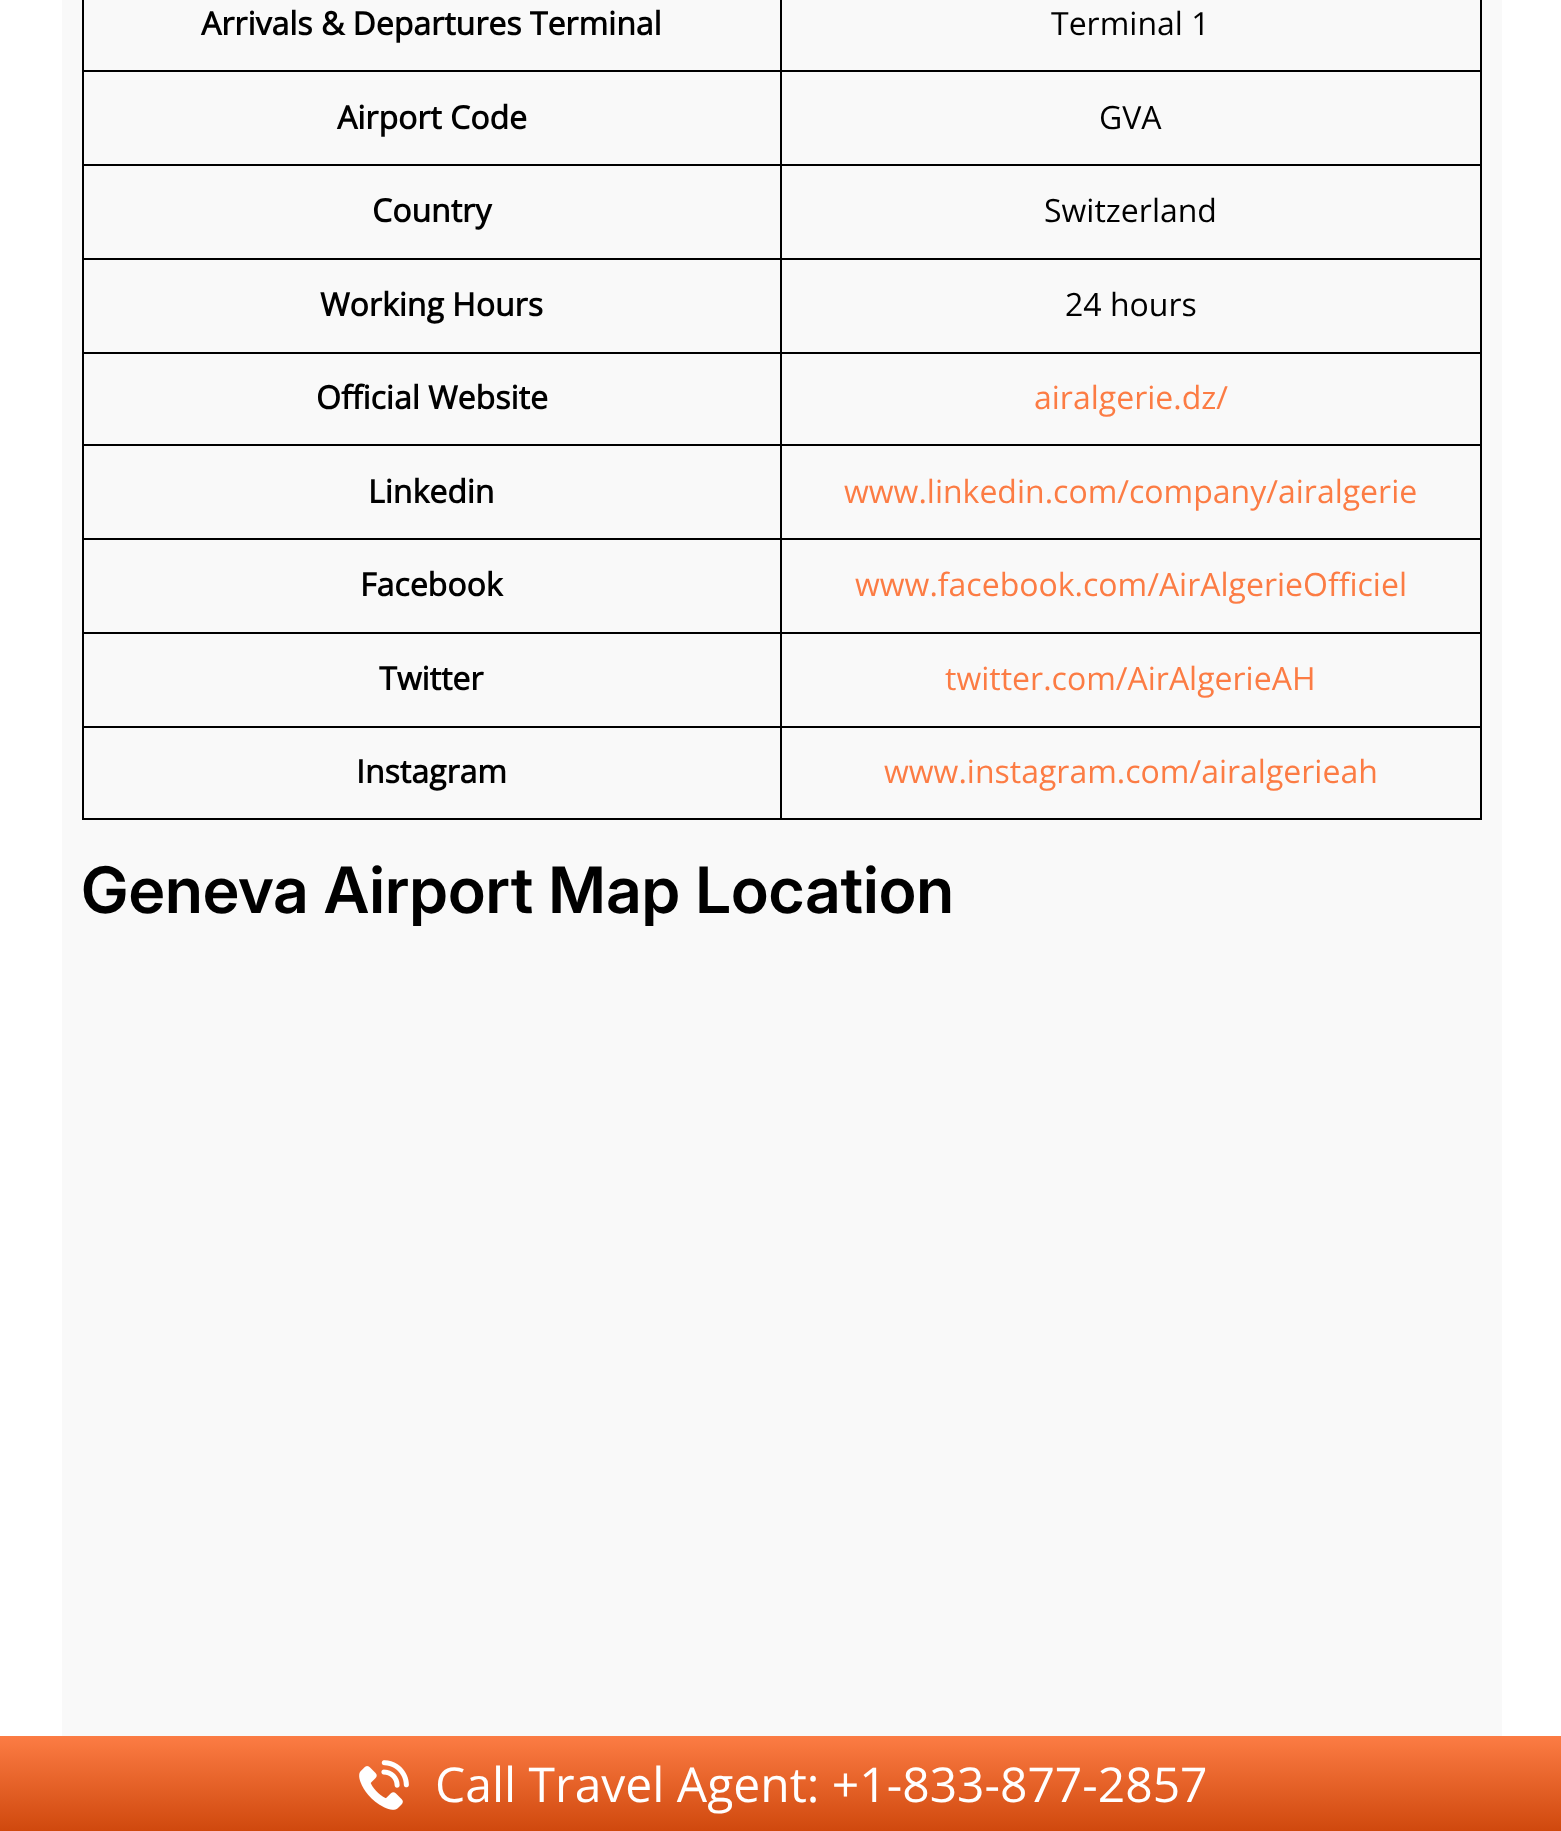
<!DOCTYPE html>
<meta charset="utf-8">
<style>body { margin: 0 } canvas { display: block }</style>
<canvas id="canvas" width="1561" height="1831"></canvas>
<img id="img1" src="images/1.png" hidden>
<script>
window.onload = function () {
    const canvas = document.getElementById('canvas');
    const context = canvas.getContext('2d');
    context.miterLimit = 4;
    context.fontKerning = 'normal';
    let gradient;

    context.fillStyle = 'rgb(255, 255, 255)';
    context.fillRect(0, 0, 1561, 1831);
    context.fillStyle = 'rgb(249, 249, 249)';
    context.fillRect(62, 0, 1440, 1736);
    context.fillStyle = 'rgb(0, 0, 0)';
    context.fillRect(780, 70, 702, 2);
    context.fillRect(780, 164, 702, 2);
    context.fillRect(780, 258, 702, 2);
    context.fillRect(780, 352, 702, 2);
    context.fillRect(780, 444, 702, 2);
    context.fillRect(780, 538, 702, 2);
    context.fillRect(780, 632, 702, 2);
    context.fillRect(780, 726, 702, 2);
    context.fillRect(1480, 726, 2, 94);
    context.fillRect(780, 818, 702, 2);
    context.fillRect(780, 726, 2, 94);
    context.fillRect(82, 726, 700, 2);
    context.fillRect(780, 632, 2, 96);
    context.fillRect(82, 632, 700, 2);
    context.fillRect(780, 538, 2, 96);
    context.fillRect(82, 538, 700, 2);
    context.fillRect(780, 444, 2, 96);
    context.fillRect(82, 444, 700, 2);
    context.fillRect(780, 352, 2, 94);
    context.fillRect(82, 352, 700, 2);
    context.fillRect(780, 258, 2, 96);
    context.fillRect(82, 258, 700, 2);
    context.fillRect(780, 164, 2, 96);
    context.fillRect(82, 164, 700, 2);
    context.fillRect(780, 70, 2, 96);
    context.fillRect(82, 70, 700, 2);
    context.fillRect(780, 0, 2, 72);
    context.fillRect(82, 818, 700, 2);
    context.fillRect(82, 726, 2, 94);
    context.fillRect(82, 632, 2, 96);
    context.fillRect(82, 538, 2, 96);
    context.fillRect(82, 444, 2, 96);
    context.fillRect(82, 352, 2, 94);
    context.fillRect(82, 258, 2, 96);
    context.fillRect(82, 164, 2, 96);
    context.fillRect(82, 0, 2, 166);
    context.fillRect(1480, 632, 2, 96);
    context.fillRect(1480, 538, 2, 96);
    context.fillRect(1480, 444, 2, 96);
    context.fillRect(1480, 352, 2, 94);
    context.fillRect(1480, 258, 2, 96);
    context.fillRect(1480, 164, 2, 96);
    context.fillRect(1480, 0, 2, 166);
    gradient = context.createLinearGradient(781, 1736, 781, 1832);
    gradient.addColorStop(0, 'rgb(252, 124, 68)');
    gradient.addColorStop(1, 'rgb(207, 72, 13)');
    context.fillStyle = gradient;
    context.fillRect(0, 1736, 1561, 95);
    context.drawImage(document.getElementById('img1'), 359, 1760, 50, 50);
    context.font = 'bold 32px Open Sans';
    context.fillStyle = 'rgb(0, 0, 0)';
    context.fillText('Arrivals & Departures Terminal', 201, 35);
    context.font = '32px Open Sans';
    context.fillText('Terminal 1', 1051, 35);
    context.font = 'bold 32px Open Sans';
    context.fillText('Airport Code', 337, 129);
    context.font = '32px Open Sans';
    context.fillText('GVA', 1099, 129);
    context.font = 'bold 32px Open Sans';
    context.fillText('Country', 372, 222);
    context.font = '32px Open Sans';
    context.fillText('Switzerland', 1044, 222);
    context.font = 'bold 32px Open Sans';
    context.fillText('Working Hours', 320, 316);
    context.font = '32px Open Sans';
    context.fillText('24 hours', 1065, 316);
    context.font = 'bold 32px Open Sans';
    context.fillText('Official Website', 316, 409);
    context.font = '32px Open Sans';
    context.fillStyle = 'rgb(252, 124, 68)';
    context.fillText('airalgerie.dz/', 1034, 409);
    context.font = 'bold 32px Open Sans';
    context.fillStyle = 'rgb(0, 0, 0)';
    context.fillText('Linkedin', 368, 503);
    context.font = '32px Open Sans';
    context.fillStyle = 'rgb(252, 124, 68)';
    context.fillText('www.linkedin.com/company/airalgerie', 844, 503);
    context.font = 'bold 32px Open Sans';
    context.fillStyle = 'rgb(0, 0, 0)';
    context.fillText('Facebook', 360, 596);
    context.font = '32px Open Sans';
    context.fillStyle = 'rgb(252, 124, 68)';
    context.fillText('www.facebook.com/AirAlgerieOfficiel', 855, 596);
    context.font = 'bold 32px Open Sans';
    context.fillStyle = 'rgb(0, 0, 0)';
    context.fillText('Twitter', 379, 690);
    context.font = '32px Open Sans';
    context.fillStyle = 'rgb(252, 124, 68)';
    context.fillText('twitter.com/AirAlgerieAH', 945, 690);
    context.font = 'bold 32px Open Sans';
    context.fillStyle = 'rgb(0, 0, 0)';
    context.fillText('Instagram', 356, 783);
    context.font = '32px Open Sans';
    context.fillStyle = 'rgb(252, 124, 68)';
    context.fillText('www.instagram.com/airalgerieah', 884, 783);
    context.font = '600 64px Inter';
    context.fillStyle = 'rgb(0, 0, 0)';
    context.fillText('Geneva Airport Map Location', 81, 913);
    context.font = '48px Open Sans';
    context.fillStyle = 'rgb(255, 255, 255)';
    context.fillText('Call Travel Agent: +1-833-877-2857', 435, 1802);
};
</script>
